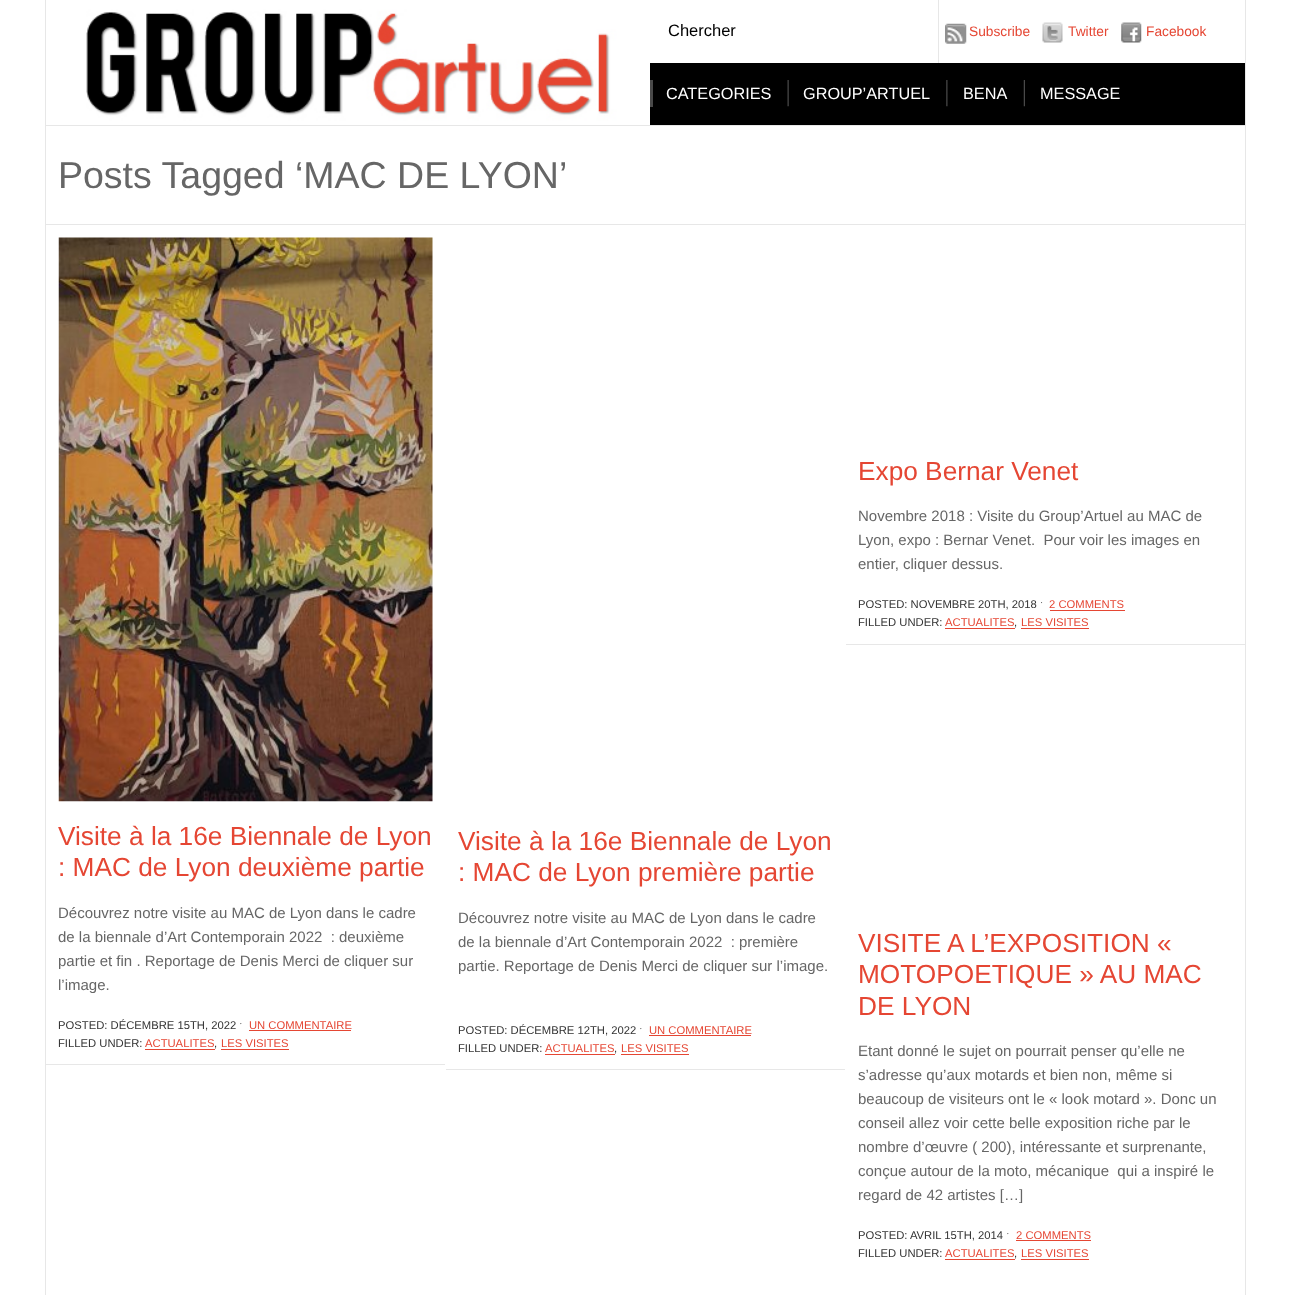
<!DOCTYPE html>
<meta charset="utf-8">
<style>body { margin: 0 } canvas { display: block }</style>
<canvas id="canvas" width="1289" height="1295"></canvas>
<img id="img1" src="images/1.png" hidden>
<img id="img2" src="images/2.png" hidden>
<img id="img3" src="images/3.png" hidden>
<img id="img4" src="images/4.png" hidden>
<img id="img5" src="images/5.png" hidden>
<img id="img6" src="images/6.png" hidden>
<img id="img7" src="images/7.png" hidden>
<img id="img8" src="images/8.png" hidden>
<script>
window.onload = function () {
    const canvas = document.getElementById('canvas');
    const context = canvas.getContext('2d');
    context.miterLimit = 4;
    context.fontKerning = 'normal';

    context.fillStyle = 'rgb(255, 255, 255)';
    context.fillRect(0, 0, 1289, 1295);
    context.fillStyle = 'rgb(231, 231, 231)';
    context.fillRect(1245, 0, 1, 1295);
    context.fillRect(45, 0, 1, 1295);
    context.fillRect(46, 125, 1199, 1);
    context.drawImage(document.getElementById('img1'), 86, 0, 564, 125);
    context.fillRect(938, 0, 1, 63);
    context.drawImage(document.getElementById('img2'), 945, 23, 22, 21);
    context.drawImage(document.getElementById('img3'), 1042, 22, 21, 21);
    context.drawImage(document.getElementById('img4'), 1121, 22, 21, 21);
    context.fillStyle = 'rgb(0, 0, 0)';
    context.fillRect(650, 63, 595, 62);
    context.fillStyle = 'rgb(73, 73, 73)';
    context.fillRect(650, 80, 3, 27);
    context.drawImage(document.getElementById('img5'), 787, 80, 2, 27);
    context.drawImage(document.getElementById('img6'), 946, 80, 2, 27);
    context.drawImage(document.getElementById('img7'), 1023, 80, 2, 27);
    context.fillStyle = 'rgb(231, 231, 231)';
    context.fillRect(46, 224, 1199, 1);
    context.drawImage(document.getElementById('img8'), 58, 237, 375, 565);
    context.fillStyle = 'rgb(229, 70, 51)';
    context.fillRect(249, 1030, 102, 1);
    context.fillRect(145, 1049, 70, 1);
    context.fillRect(221, 1049, 68, 1);
    context.fillStyle = 'rgb(231, 231, 231)';
    context.fillRect(46, 1064, 399, 1);
    context.fillStyle = 'rgb(229, 70, 51)';
    context.fillRect(649, 1035, 102, 1);
    context.fillRect(545, 1054, 70, 1);
    context.fillRect(621, 1054, 68, 1);
    context.fillStyle = 'rgb(231, 231, 231)';
    context.fillRect(446, 1069, 399, 1);
    context.fillStyle = 'rgb(229, 70, 51)';
    context.fillRect(1050, 610, 75, 1);
    context.fillRect(945, 628, 70, 1);
    context.fillRect(1021, 628, 68, 1);
    context.fillStyle = 'rgb(231, 231, 231)';
    context.fillRect(846, 644, 399, 1);
    context.fillStyle = 'rgb(229, 70, 51)';
    context.fillRect(1016, 1240, 75, 1);
    context.fillRect(945, 1259, 70, 1);
    context.fillRect(1021, 1259, 68, 1);
    context.font = '16.5px Liberation Sans';
    context.fillStyle = 'rgb(0, 0, 0)';
    context.fillText('Chercher', 668, 36);
    context.font = '13.75px Liberation Sans';
    context.fillStyle = 'rgb(229, 70, 51)';
    context.fillText('Subscribe', 969, 36);
    context.fillText('Twitter', 1068, 36);
    context.fillText('Facebook', 1146, 36);
    context.font = '16.25px Liberation Sans';
    context.fillStyle = 'rgb(255, 255, 255)';
    context.fillText('CATEGORIES', 666, 99);
    context.fillText('GROUP’ARTUEL', 803, 99);
    context.fillText('BENA', 963, 99);
    context.fillText('MESSAGE', 1040, 99);
    context.font = '37.5px Liberation Sans';
    context.fillStyle = 'rgb(102, 102, 102)';
    context.fillText('Posts Tagged ‘MAC DE LYON’', 58, 188);
    context.font = '26.25px Liberation Sans';
    context.fillStyle = 'rgb(229, 70, 51)';
    context.fillText('Visite à la 16e Biennale de Lyon', 58, 845);
    context.fillText(': MAC de Lyon deuxième partie', 58, 876);
    context.font = '15px Liberation Sans';
    context.fillStyle = 'rgb(102, 102, 102)';
    context.fillText('Découvrez notre visite au MAC de Lyon dans le cadre', 58, 918);
    context.fillText('de la biennale d’Art Contemporain 2022  : deuxième', 58, 942);
    context.fillText('partie et fin . Reportage de Denis Merci de cliquer sur', 58, 966);
    context.fillText('l’image.', 58, 990);
    context.font = '11.25px Liberation Sans';
    context.fillStyle = 'rgb(51, 51, 51)';
    context.fillText('POSTED: DÉCEMBRE 15TH, 2022 ˑ', 58, 1029);
    context.fillStyle = 'rgb(229, 70, 51)';
    context.fillText('UN COMMENTAIRE', 249, 1029);
    context.fillStyle = 'rgb(51, 51, 51)';
    context.fillText('FILLED UNDER:', 58, 1047);
    context.fillStyle = 'rgb(229, 70, 51)';
    context.fillText('ACTUALITES', 145, 1047);
    context.fillStyle = 'rgb(51, 51, 51)';
    context.fillText(',', 214, 1047);
    context.fillStyle = 'rgb(229, 70, 51)';
    context.fillText('LES VISITES', 221, 1047);
    context.font = '26.25px Liberation Sans';
    context.fillText('Visite à la 16e Biennale de Lyon', 458, 850);
    context.fillText(': MAC de Lyon première partie', 458, 881);
    context.font = '15px Liberation Sans';
    context.fillStyle = 'rgb(102, 102, 102)';
    context.fillText('Découvrez notre visite au MAC de Lyon dans le cadre', 458, 923);
    context.fillText('de la biennale d’Art Contemporain 2022  : première', 458, 947);
    context.fillText('partie. Reportage de Denis Merci de cliquer sur l’image.', 458, 971);
    context.font = '11.25px Liberation Sans';
    context.fillStyle = 'rgb(51, 51, 51)';
    context.fillText('POSTED: DÉCEMBRE 12TH, 2022 ˑ', 458, 1034);
    context.fillStyle = 'rgb(229, 70, 51)';
    context.fillText('UN COMMENTAIRE', 649, 1034);
    context.fillStyle = 'rgb(51, 51, 51)';
    context.fillText('FILLED UNDER:', 458, 1052);
    context.fillStyle = 'rgb(229, 70, 51)';
    context.fillText('ACTUALITES', 545, 1052);
    context.fillStyle = 'rgb(51, 51, 51)';
    context.fillText(',', 614, 1052);
    context.fillStyle = 'rgb(229, 70, 51)';
    context.fillText('LES VISITES', 621, 1052);
    context.font = '26.25px Liberation Sans';
    context.fillText('Expo Bernar Venet', 858, 480);
    context.font = '15px Liberation Sans';
    context.fillStyle = 'rgb(102, 102, 102)';
    context.fillText('Novembre 2018 : Visite du Group’Artuel au MAC de', 858, 521);
    context.fillText('Lyon, expo : Bernar Venet.  Pour voir les images en', 858, 545);
    context.fillText('entier, cliquer dessus.', 858, 569);
    context.font = '11.25px Liberation Sans';
    context.fillStyle = 'rgb(51, 51, 51)';
    context.fillText('POSTED: NOVEMBRE 20TH, 2018 ˑ', 858, 608);
    context.fillStyle = 'rgb(229, 70, 51)';
    context.fillText('2 COMMENTS', 1049, 608);
    context.fillStyle = 'rgb(51, 51, 51)';
    context.fillText('FILLED UNDER:', 858, 626);
    context.fillStyle = 'rgb(229, 70, 51)';
    context.fillText('ACTUALITES', 945, 626);
    context.fillStyle = 'rgb(51, 51, 51)';
    context.fillText(',', 1014, 626);
    context.fillStyle = 'rgb(229, 70, 51)';
    context.fillText('LES VISITES', 1021, 626);
    context.font = '26.25px Liberation Sans';
    context.fillText('VISITE A L’EXPOSITION «', 858, 952);
    context.fillText('MOTOPOETIQUE » AU MAC', 858, 983);
    context.fillText('DE LYON', 858, 1015);
    context.font = '15px Liberation Sans';
    context.fillStyle = 'rgb(102, 102, 102)';
    context.fillText('Etant donné le sujet on pourrait penser qu’elle ne', 858, 1056);
    context.fillText('s’adresse qu’aux motards et bien non, même si', 858, 1080);
    context.fillText('beaucoup de visiteurs ont le « look motard ». Donc un', 858, 1104);
    context.fillText('conseil allez voir cette belle exposition riche par le', 858, 1128);
    context.fillText('nombre d’œuvre ( 200), intéressante et surprenante,', 858, 1152);
    context.fillText('conçue autour de la moto, mécanique  qui a inspiré le', 858, 1176);
    context.fillText('regard de 42 artistes […]', 858, 1200);
    context.font = '11.25px Liberation Sans';
    context.fillStyle = 'rgb(51, 51, 51)';
    context.fillText('POSTED: AVRIL 15TH, 2014 ˑ', 858, 1239);
    context.fillStyle = 'rgb(229, 70, 51)';
    context.fillText('2 COMMENTS', 1016, 1239);
    context.fillStyle = 'rgb(51, 51, 51)';
    context.fillText('FILLED UNDER:', 858, 1257);
    context.fillStyle = 'rgb(229, 70, 51)';
    context.fillText('ACTUALITES', 945, 1257);
    context.fillStyle = 'rgb(51, 51, 51)';
    context.fillText(',', 1014, 1257);
    context.fillStyle = 'rgb(229, 70, 51)';
    context.fillText('LES VISITES', 1021, 1257);
};
</script>
